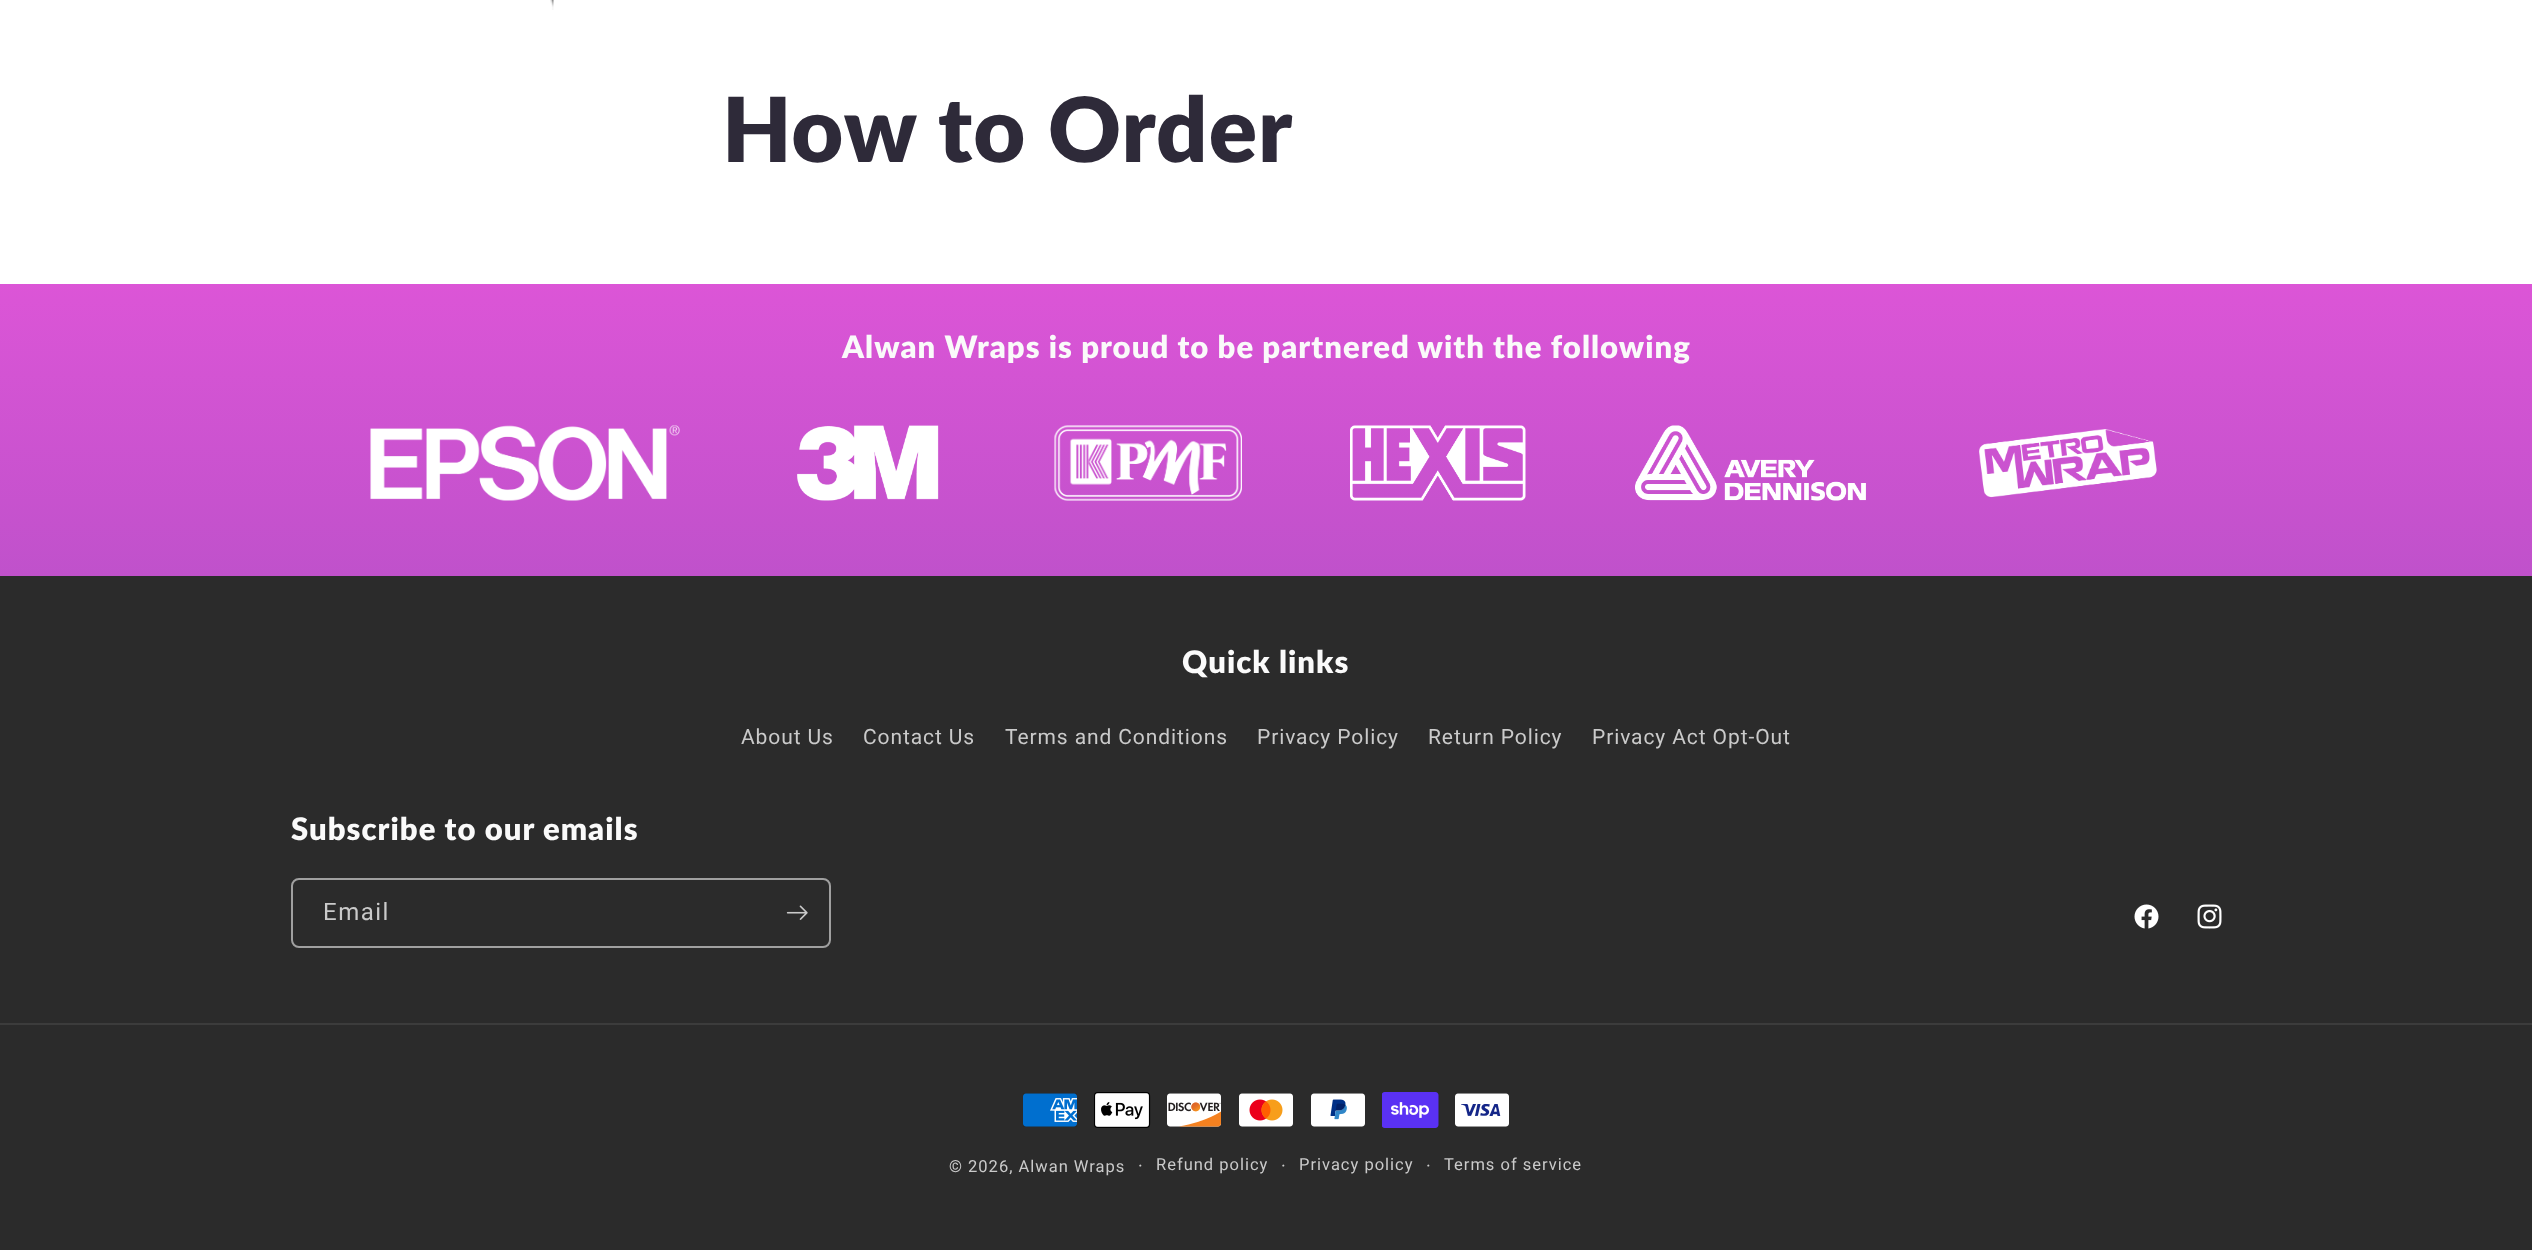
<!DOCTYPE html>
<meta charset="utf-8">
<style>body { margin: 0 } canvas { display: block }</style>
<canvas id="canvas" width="2532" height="1250"></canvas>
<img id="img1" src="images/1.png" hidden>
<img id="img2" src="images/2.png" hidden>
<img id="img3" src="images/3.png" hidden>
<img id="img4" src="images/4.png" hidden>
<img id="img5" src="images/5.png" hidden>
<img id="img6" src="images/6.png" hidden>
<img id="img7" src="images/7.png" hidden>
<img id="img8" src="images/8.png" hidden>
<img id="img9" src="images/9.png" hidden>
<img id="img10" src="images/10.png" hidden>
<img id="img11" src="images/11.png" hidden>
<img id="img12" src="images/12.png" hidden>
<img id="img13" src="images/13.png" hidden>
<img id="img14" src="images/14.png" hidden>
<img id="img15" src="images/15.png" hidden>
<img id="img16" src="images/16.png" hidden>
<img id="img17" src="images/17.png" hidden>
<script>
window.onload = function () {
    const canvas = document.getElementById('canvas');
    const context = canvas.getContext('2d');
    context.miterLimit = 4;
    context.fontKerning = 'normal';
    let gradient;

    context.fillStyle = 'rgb(255, 255, 255)';
    context.fillRect(0, 0, 2532, 1250);
    context.drawImage(document.getElementById('img1'), 550, 0, 4, 10);
    gradient = context.createLinearGradient(1266, 0, 1266, 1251);
    gradient.addColorStop(0, 'rgb(247, 89, 226)');
    gradient.addColorStop(1, 'rgb(127, 72, 176)');
    context.fillStyle = gradient;
    context.fillRect(0, 284, 2532, 292);
    context.drawImage(document.getElementById('img2'), 370, 425, 310, 76);
    context.drawImage(document.getElementById('img3'), 797, 425, 142, 76);
    context.drawImage(document.getElementById('img4'), 1054, 425, 188, 76);
    context.drawImage(document.getElementById('img5'), 1350, 425, 176, 76);
    context.drawImage(document.getElementById('img6'), 1635, 425, 231, 76);
    context.drawImage(document.getElementById('img7'), 1979, 429, 178, 69);
    context.fillStyle = 'rgb(43, 43, 43)';
    context.fillRect(0, 576, 2532, 674);
    context.beginPath();
    context.roundRect(292, 879, 538, 68, 7);
    context.strokeStyle = 'rgb(160, 160, 160)';
    context.lineWidth = 2;
    context.stroke();
    context.drawImage(document.getElementById('img8'), 786, 905, 22, 15);
    context.drawImage(document.getElementById('img9'), 2134, 904, 25, 25);
    context.drawImage(document.getElementById('img10'), 2197, 904, 25, 25);
    context.fillStyle = 'rgb(60, 60, 60)';
    context.fillRect(0, 1023, 2532, 2);
    context.drawImage(document.getElementById('img11'), 1023, 1093, 54, 34);
    context.drawImage(document.getElementById('img12'), 1094, 1092, 57, 36);
    context.drawImage(document.getElementById('img13'), 1167, 1093, 54, 34);
    context.drawImage(document.getElementById('img14'), 1239, 1093, 54, 34);
    context.drawImage(document.getElementById('img15'), 1311, 1093, 54, 34);
    context.drawImage(document.getElementById('img16'), 1382, 1092, 57, 36);
    context.drawImage(document.getElementById('img17'), 1455, 1093, 54, 34);
    context.letterSpacing = '1.03px';
    context.font = '800 89.75px Lato';
    context.fillStyle = 'rgb(46, 42, 57)';
    context.fillText('How to Order', 722, 162);
    context.font = '800 31.05px Lato';
    context.fillStyle = 'rgb(250, 250, 250)';
    context.fillText('Alwan Wraps is proud to be partnered with the following', 842, 358);
    context.fillText('Quick links', 1182, 673);
    context.letterSpacing = '0.9px';
    context.font = '21px Roboto';
    context.fillStyle = 'rgb(202, 202, 202)';
    context.fillText('About Us', 741, 744);
    context.fillText('Contact Us', 863, 744);
    context.fillText('Terms and Conditions', 1005, 744);
    context.fillText('Privacy Policy', 1257, 744);
    context.fillText('Return Policy', 1428, 744);
    context.fillText('Privacy Act Opt-Out', 1592, 744);
    context.letterSpacing = '1.03px';
    context.font = '800 31.05px Lato';
    context.fillStyle = 'rgb(250, 250, 250)';
    context.fillText('Subscribe to our emails', 291, 840);
    context.letterSpacing = '1.5px';
    context.font = '24px Roboto';
    context.fillStyle = 'rgb(202, 202, 202)';
    context.fillText('Email', 323, 920);
    context.letterSpacing = '1px';
    context.font = '16.5px Roboto';
    context.fillText('© 2026, Alwan Wraps', 949, 1172);
    context.font = '18px Roboto';
    context.fillText('·', 1138, 1172);
    context.font = '16.5px Roboto';
    context.fillText('Refund policy', 1156, 1170);
    context.font = '18px Roboto';
    context.fillText('·', 1281, 1172);
    context.font = '16.5px Roboto';
    context.fillText('Privacy policy', 1299, 1170);
    context.font = '18px Roboto';
    context.fillText('·', 1426, 1172);
    context.font = '16.5px Roboto';
    context.fillText('Terms of service', 1444, 1170);
};
</script>
